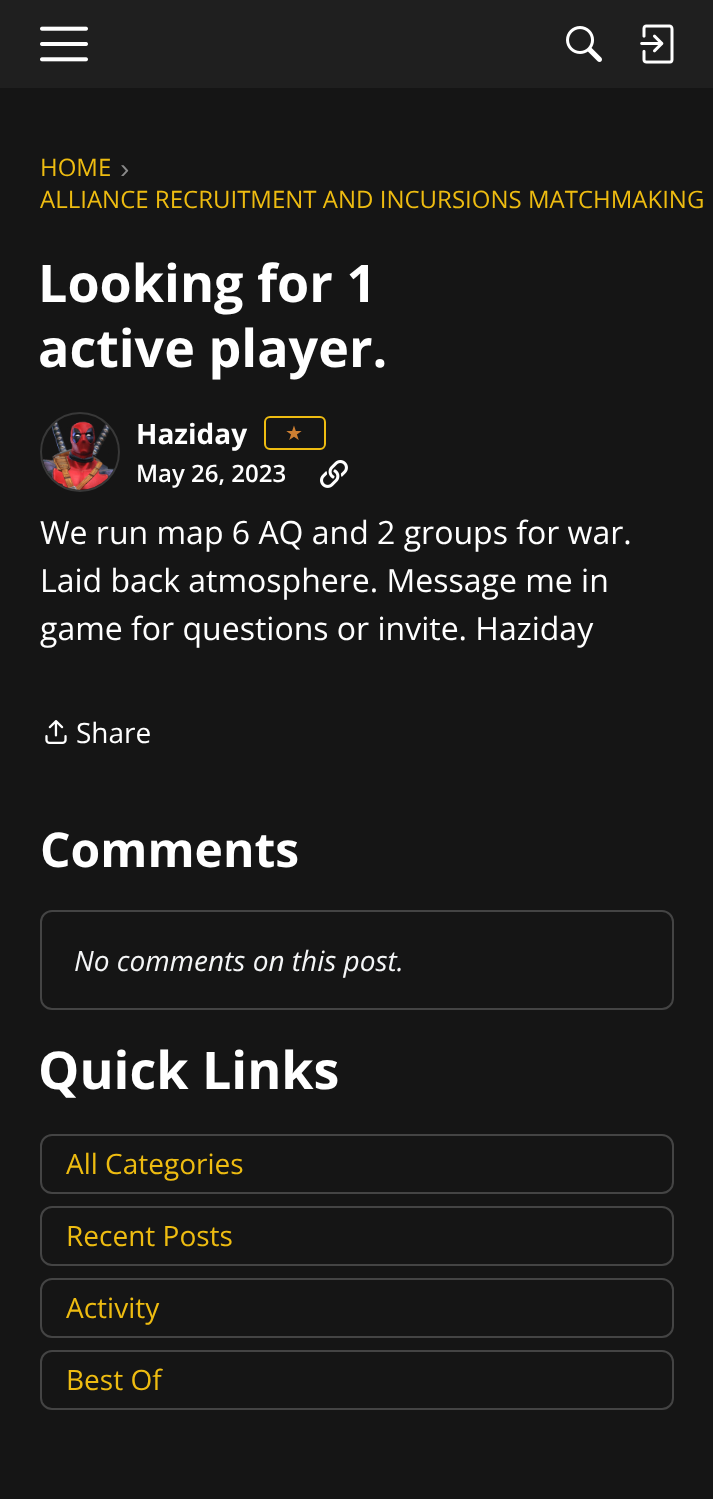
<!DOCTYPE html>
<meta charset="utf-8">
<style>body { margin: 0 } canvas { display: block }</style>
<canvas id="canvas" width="713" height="1499"></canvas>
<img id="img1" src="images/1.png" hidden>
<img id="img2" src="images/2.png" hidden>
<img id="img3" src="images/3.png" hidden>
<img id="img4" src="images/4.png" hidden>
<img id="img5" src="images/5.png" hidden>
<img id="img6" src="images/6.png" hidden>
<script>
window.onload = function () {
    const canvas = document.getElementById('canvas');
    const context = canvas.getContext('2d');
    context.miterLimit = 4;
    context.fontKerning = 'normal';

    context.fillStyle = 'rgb(21, 21, 21)';
    context.fillRect(0, 0, 713, 1499);
    context.fillStyle = 'rgb(31, 31, 31)';
    context.fillRect(0, 0, 713, 88);
    context.drawImage(document.getElementById('img1'), 40, 26, 48, 36);
    context.drawImage(document.getElementById('img2'), 566, 26, 36, 36);
    context.drawImage(document.getElementById('img3'), 640, 24, 34, 40);
    context.beginPath();
    context.arc(80, 452, 39, 0, 2 * Math.PI);
    context.strokeStyle = 'rgb(56, 56, 56)';
    context.lineWidth = 2;
    context.stroke();
    context.drawImage(document.getElementById('img4'), 43, 421, 71, 69);
    context.beginPath();
    context.roundRect(265, 417, 60, 32, 5);
    context.strokeStyle = 'rgb(238, 188, 17)';
    context.stroke();
    context.drawImage(document.getElementById('img5'), 320, 460, 28, 28);
    context.drawImage(document.getElementById('img6'), 45, 720, 22, 24);
    context.beginPath();
    context.roundRect(41, 911, 632, 98, 11);
    context.strokeStyle = 'rgb(68, 68, 68)';
    context.stroke();
    context.beginPath();
    context.roundRect(41, 1135, 632, 58, 11);
    context.stroke();
    context.beginPath();
    context.roundRect(41, 1207, 632, 58, 11);
    context.stroke();
    context.beginPath();
    context.roundRect(41, 1279, 632, 58, 11);
    context.stroke();
    context.beginPath();
    context.roundRect(41, 1351, 632, 58, 11);
    context.stroke();
    context.font = '24px Open Sans';
    context.fillStyle = 'rgb(238, 188, 17)';
    context.fillText('HOME', 40, 176);
    context.font = '28px Liberation Sans';
    context.fillStyle = 'rgb(138, 138, 138)';
    context.fillText('›', 120, 178);
    context.font = '24px Open Sans';
    context.fillStyle = 'rgb(238, 188, 17)';
    context.fillText('ALLIANCE RECRUITMENT AND INCURSIONS MATCHMAKING', 40, 208);
    context.font = 'bold 52px Open Sans';
    context.fillStyle = 'rgb(255, 255, 255)';
    context.fillText('Looking for 1', 38, 302);
    context.fillText('active player.', 38, 367);
    context.font = 'bold 28px Open Sans';
    context.fillText('Haziday', 136, 444);
    context.font = '20px DejaVu Sans';
    context.fillStyle = 'rgb(205, 127, 50)';
    context.fillText('★', 285, 440);
    context.font = '600 24px Open Sans';
    context.fillStyle = 'rgb(255, 255, 255)';
    context.fillText('May 26, 2023', 136, 482);
    context.font = '32px Open Sans';
    context.fillText('We run map 6 AQ and 2 groups for war.', 40, 544);
    context.fillText('Laid back atmosphere. Message me in', 40, 592);
    context.fillText('game for questions or invite. Haziday', 40, 640);
    context.font = '28px Open Sans';
    context.fillText('Share', 76, 743);
    context.font = 'bold 48px Open Sans';
    context.fillText('Comments', 40, 867);
    context.font = 'italic 28px Open Sans';
    context.fillStyle = 'rgb(245, 246, 247)';
    context.fillText('No comments on this post.', 74, 971);
    context.font = 'bold 52px Open Sans';
    context.fillStyle = 'rgb(255, 255, 255)';
    context.fillText('Quick Links', 38, 1089);
    context.font = '28px Open Sans';
    context.fillStyle = 'rgb(238, 188, 17)';
    context.fillText('All Categories', 66, 1174);
    context.fillText('Recent Posts', 66, 1246);
    context.fillText('Activity', 66, 1318);
    context.fillText('Best Of', 66, 1390);
};
</script>
